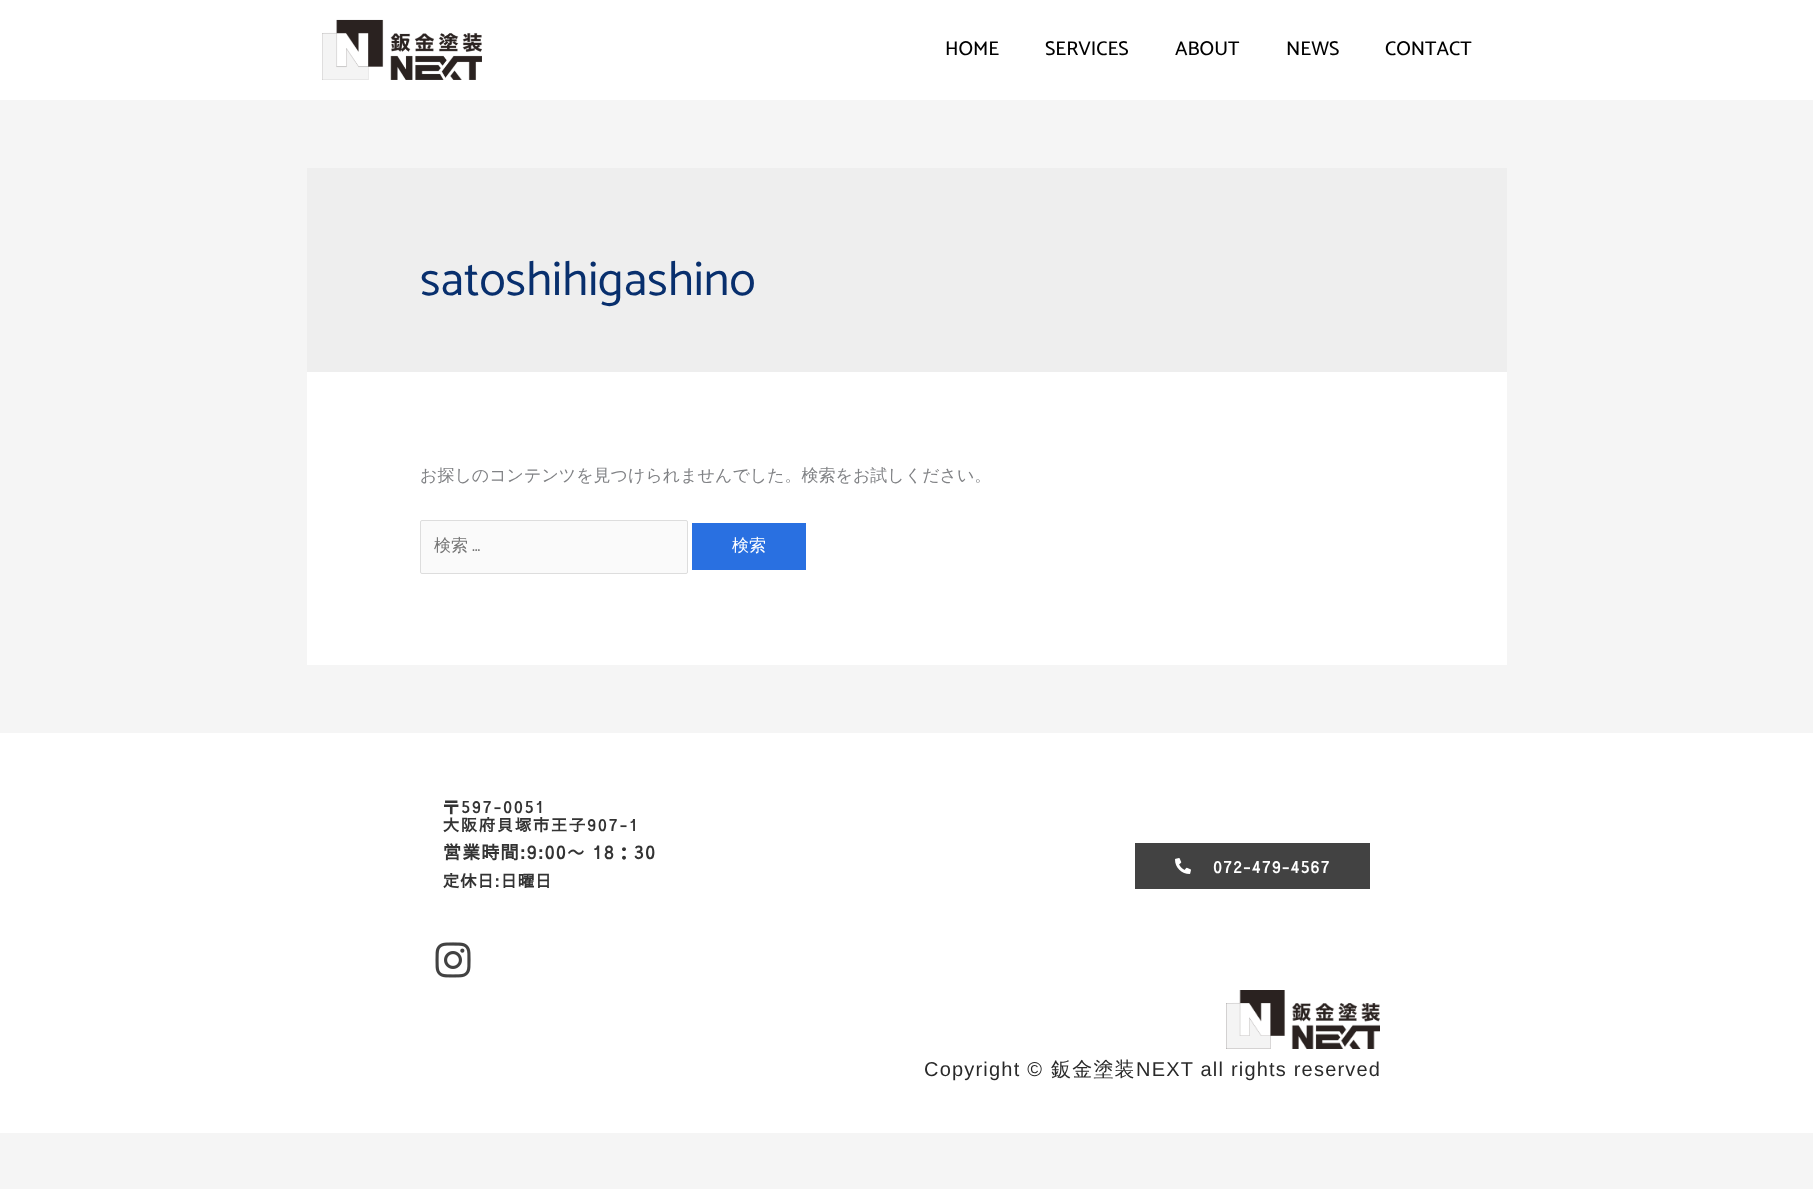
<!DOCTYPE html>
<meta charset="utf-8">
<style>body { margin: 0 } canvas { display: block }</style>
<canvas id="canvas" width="1813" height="1189"></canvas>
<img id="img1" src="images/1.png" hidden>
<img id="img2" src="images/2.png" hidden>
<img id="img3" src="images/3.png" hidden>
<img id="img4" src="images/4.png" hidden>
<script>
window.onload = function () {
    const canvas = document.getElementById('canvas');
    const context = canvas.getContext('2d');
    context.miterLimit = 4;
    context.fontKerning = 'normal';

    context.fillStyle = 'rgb(245, 245, 245)';
    context.fillRect(0, 0, 1813, 1189);
    context.fillStyle = 'rgb(255, 255, 255)';
    context.fillRect(0, 0, 1813, 100);
    context.drawImage(document.getElementById('img1'), 322, 19, 160, 61);
    context.fillStyle = 'rgb(238, 238, 238)';
    context.fillRect(307, 168, 1200, 204);
    context.fillStyle = 'rgb(255, 255, 255)';
    context.fillRect(307, 372, 1200, 293);
    context.fillStyle = 'rgb(250, 250, 250)';
    context.beginPath();
    context.roundRect(420.5, 520.5, 267, 53, 1.5);
    context.fill();
    context.strokeStyle = 'rgb(221, 221, 221)';
    context.stroke();
    context.fillStyle = 'rgb(41, 112, 225)';
    context.fillRect(692, 523, 114, 47);
    context.fillStyle = 'rgb(255, 255, 255)';
    context.fillRect(0, 733, 1813, 400);
    context.fillStyle = 'rgb(66, 66, 66)';
    context.fillRect(1135, 843, 235, 46);
    context.drawImage(document.getElementById('img2'), 1175, 858, 16, 16);
    context.drawImage(document.getElementById('img3'), 435, 942, 36, 36);
    context.drawImage(document.getElementById('img4'), 1226, 990, 154, 59);
    context.font = '500 20px Catamaran';
    context.fillStyle = 'rgb(0, 0, 0)';
    context.fillText('HOME', 945, 55);
    context.fillText('SERVICES', 1045, 55);
    context.fillText('ABOUT', 1175, 55);
    context.fillText('NEWS', 1286, 55);
    context.fillText('CONTACT', 1385, 55);
    context.font = '48.5px Catamaran';
    context.fillStyle = 'rgb(8, 47, 109)';
    context.fillText('satoshihigashino', 420, 295);
    context.font = '500 17px WenQuanYi Zen Hei';
    context.fillStyle = 'rgb(128, 130, 133)';
    context.fillText('お探しのコンテンツを見つけられませんでした。検索をお試しください。', 420, 481);
    context.fillStyle = 'rgb(117, 117, 117)';
    context.fillText('検索', 434, 551);
    context.font = '500 17px Catamaran';
    context.fillText('…', 472, 551);
    context.font = '500 17px WenQuanYi Zen Hei';
    context.fillStyle = 'rgb(255, 255, 255)';
    context.fillText('検索', 732, 551);
    context.letterSpacing = '2px';
    context.font = 'bold 16px Sawarabi Gothic';
    context.fillStyle = 'rgb(51, 51, 51)';
    context.fillText('〒597-0051', 443, 813);
    context.fillText('大阪府貝塚市王子907-1', 443, 831);
    context.letterSpacing = '1.2px';
    context.font = 'bold 18px Sawarabi Gothic';
    context.fillText('営業時間:9:00〜 18：30', 443, 859);
    context.font = 'bold 16px Sawarabi Gothic';
    context.fillText('定休日:日曜日', 443, 887);
    context.fillStyle = 'rgb(255, 255, 255)';
    context.fillText('072-479-4567', 1213, 873);
    context.font = '20px Liberation Sans';
    context.fillStyle = 'rgb(41, 41, 41)';
    context.fillText('Copyright ©︎', 924, 1076);
    context.font = '500 20px WenQuanYi Zen Hei';
    context.fillText('鈑金塗装', 1051, 1076);
    context.font = '20px Liberation Sans';
    context.fillText('NEXT all rights reserved', 1136, 1076);
};
</script>
